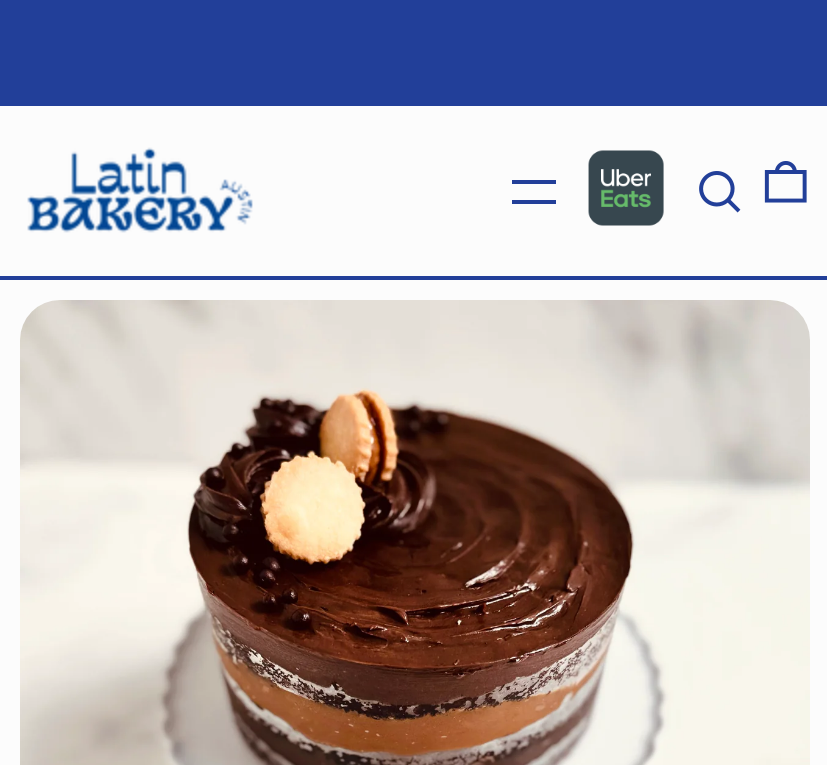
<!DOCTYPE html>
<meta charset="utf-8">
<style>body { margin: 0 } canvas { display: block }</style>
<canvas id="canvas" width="827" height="765"></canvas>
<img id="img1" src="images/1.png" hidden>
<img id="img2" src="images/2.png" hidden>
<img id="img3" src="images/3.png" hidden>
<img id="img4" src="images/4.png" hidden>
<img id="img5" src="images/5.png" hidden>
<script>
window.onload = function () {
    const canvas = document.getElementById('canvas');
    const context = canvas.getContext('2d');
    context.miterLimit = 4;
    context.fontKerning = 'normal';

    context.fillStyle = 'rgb(252, 252, 252)';
    context.fillRect(0, 0, 827, 765);
    context.fillStyle = 'rgb(34, 63, 153)';
    context.fillRect(0, 0, 827, 106);
    context.fillRect(0, 276, 827, 4);
    context.drawImage(document.getElementById('img1'), 27, 147, 226, 86);
    context.beginPath();
    context.moveTo(556, 200);
    context.lineTo(556, 204);
    context.lineTo(512, 204);
    context.lineTo(512, 200);
    context.closePath();
    context.moveTo(556, 180);
    context.lineTo(556, 184);
    context.lineTo(512, 184);
    context.lineTo(512, 180);
    context.closePath();
    context.fill('evenodd');
    context.drawImage(document.getElementById('img2'), 588, 150, 76, 76);
    context.drawImage(document.getElementById('img3'), 699, 171, 42, 42);
    context.drawImage(document.getElementById('img4'), 764, 161, 43, 42);
    context.drawImage(document.getElementById('img5'), 20, 300, 790, 465);
};
</script>
